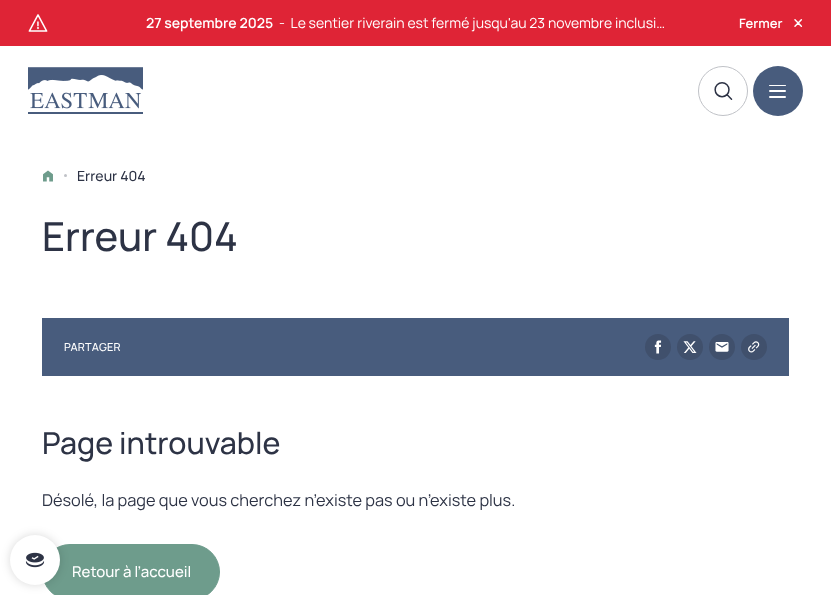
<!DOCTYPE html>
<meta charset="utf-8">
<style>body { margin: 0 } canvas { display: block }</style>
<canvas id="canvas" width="831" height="595"></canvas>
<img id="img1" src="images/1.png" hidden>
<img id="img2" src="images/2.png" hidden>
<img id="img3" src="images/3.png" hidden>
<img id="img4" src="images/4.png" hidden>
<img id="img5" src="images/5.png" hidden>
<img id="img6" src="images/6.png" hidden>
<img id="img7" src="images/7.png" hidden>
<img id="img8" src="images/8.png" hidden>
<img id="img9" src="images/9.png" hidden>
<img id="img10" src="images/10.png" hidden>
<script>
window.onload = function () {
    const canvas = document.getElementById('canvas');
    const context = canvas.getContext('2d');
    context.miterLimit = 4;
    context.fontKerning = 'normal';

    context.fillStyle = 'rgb(255, 255, 255)';
    context.fillRect(0, 0, 831, 595);
    context.fillStyle = 'rgb(223, 36, 54)';
    context.fillRect(0, 0, 831, 46);
    context.drawImage(document.getElementById('img1'), 28, 14, 20, 18);
    context.drawImage(document.getElementById('img2'), 794, 19, 9, 8);
    context.drawImage(document.getElementById('img3'), 28, 67, 115, 47);
    context.beginPath();
    context.arc(723, 91, 24.5, 0, 2 * Math.PI);
    context.strokeStyle = 'rgb(192, 194, 199)';
    context.stroke();
    context.drawImage(document.getElementById('img4'), 714, 82, 19, 18);
    context.fillStyle = 'rgb(72, 92, 125)';
    context.beginPath();
    context.arc(778, 91, 25, 0, 2 * Math.PI);
    context.fill();
    context.fillStyle = 'rgb(255, 255, 255)';
    context.beginPath();
    context.roundRect(769, 85, 17, 1, 0.5);
    context.fill();
    context.beginPath();
    context.roundRect(769, 90, 17, 2, 1);
    context.fill();
    context.beginPath();
    context.roundRect(769, 96, 17, 2, 1);
    context.fill();
    context.fillStyle = 'rgb(110, 156, 140)';
    context.beginPath();
    context.roundRect(42.5, 544.5, 177, 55, 27.5);
    context.fill();
    context.strokeStyle = 'rgb(110, 156, 140)';
    context.stroke();
    context.fillStyle = 'rgba(0, 0, 0, 0.15)';
    context.filter = 'blur(5px)';
    context.beginPath();
    context.roundRect(10, 535, 50, 50, 25);
    context.fill();
    context.filter = 'none';
    context.fillStyle = 'rgb(255, 255, 255)';
    context.beginPath();
    context.arc(35, 560, 25, 0, 2 * Math.PI);
    context.fill();
    context.drawImage(document.getElementById('img5'), 25, 552, 20, 16);
    context.drawImage(document.getElementById('img6'), 43, 170, 10, 12);
    context.fillStyle = 'rgb(192, 194, 199)';
    context.beginPath();
    context.arc(65.5, 175.5, 1.5, 0, 2 * Math.PI);
    context.fill();
    context.fillStyle = 'rgb(72, 92, 125)';
    context.fillRect(42, 318, 747, 58);
    context.fillStyle = 'rgb(64, 80, 108)';
    context.beginPath();
    context.arc(658, 347, 13, 0, 2 * Math.PI);
    context.fill();
    context.drawImage(document.getElementById('img7'), 654, 340, 8, 14);
    context.beginPath();
    context.arc(690, 347, 13, 0, 2 * Math.PI);
    context.fill();
    context.drawImage(document.getElementById('img8'), 683, 341, 14, 12);
    context.beginPath();
    context.arc(722, 347, 13, 0, 2 * Math.PI);
    context.fill();
    context.drawImage(document.getElementById('img9'), 715, 342, 14, 10);
    context.beginPath();
    context.arc(754, 347, 13, 0, 2 * Math.PI);
    context.fill();
    context.drawImage(document.getElementById('img10'), 748, 341, 12, 12);
    context.font = '600 14px Manrope';
    context.fillStyle = 'rgb(255, 255, 255)';
    context.fillText('27 septembre 2025', 146, 28);
    context.font = '14px Manrope';
    context.fillText('-  Le sentier riverain est fermé jusqu\'au 23 novembre inclusi…', 279, 28);
    context.font = '600 13px Manrope';
    context.fillText('Fermer', 739, 28);
    context.font = '500 14px Manrope';
    context.fillStyle = 'rgb(45, 51, 69)';
    context.fillText('Erreur 404', 77, 181);
    context.font = '500 40px Manrope';
    context.fillText('Erreur 404', 42, 251);
    context.letterSpacing = '0.25px';
    context.font = '500 11px Manrope';
    context.fillStyle = 'rgb(255, 255, 255)';
    context.fillText('PARTAGER', 64, 351);
    context.letterSpacing = '0px';
    context.font = '500 30.25px Manrope';
    context.fillStyle = 'rgb(45, 51, 69)';
    context.fillText('Page introuvable', 42, 454);
    context.font = '16.35px Manrope';
    context.fillText('Désolé, la page que vous cherchez n’existe pas ou n’existe plus.', 42, 506);
    context.font = '500 15px Manrope';
    context.fillStyle = 'rgb(255, 255, 255)';
    context.fillText('Retour à l’accueil', 72, 577);
};
</script>
